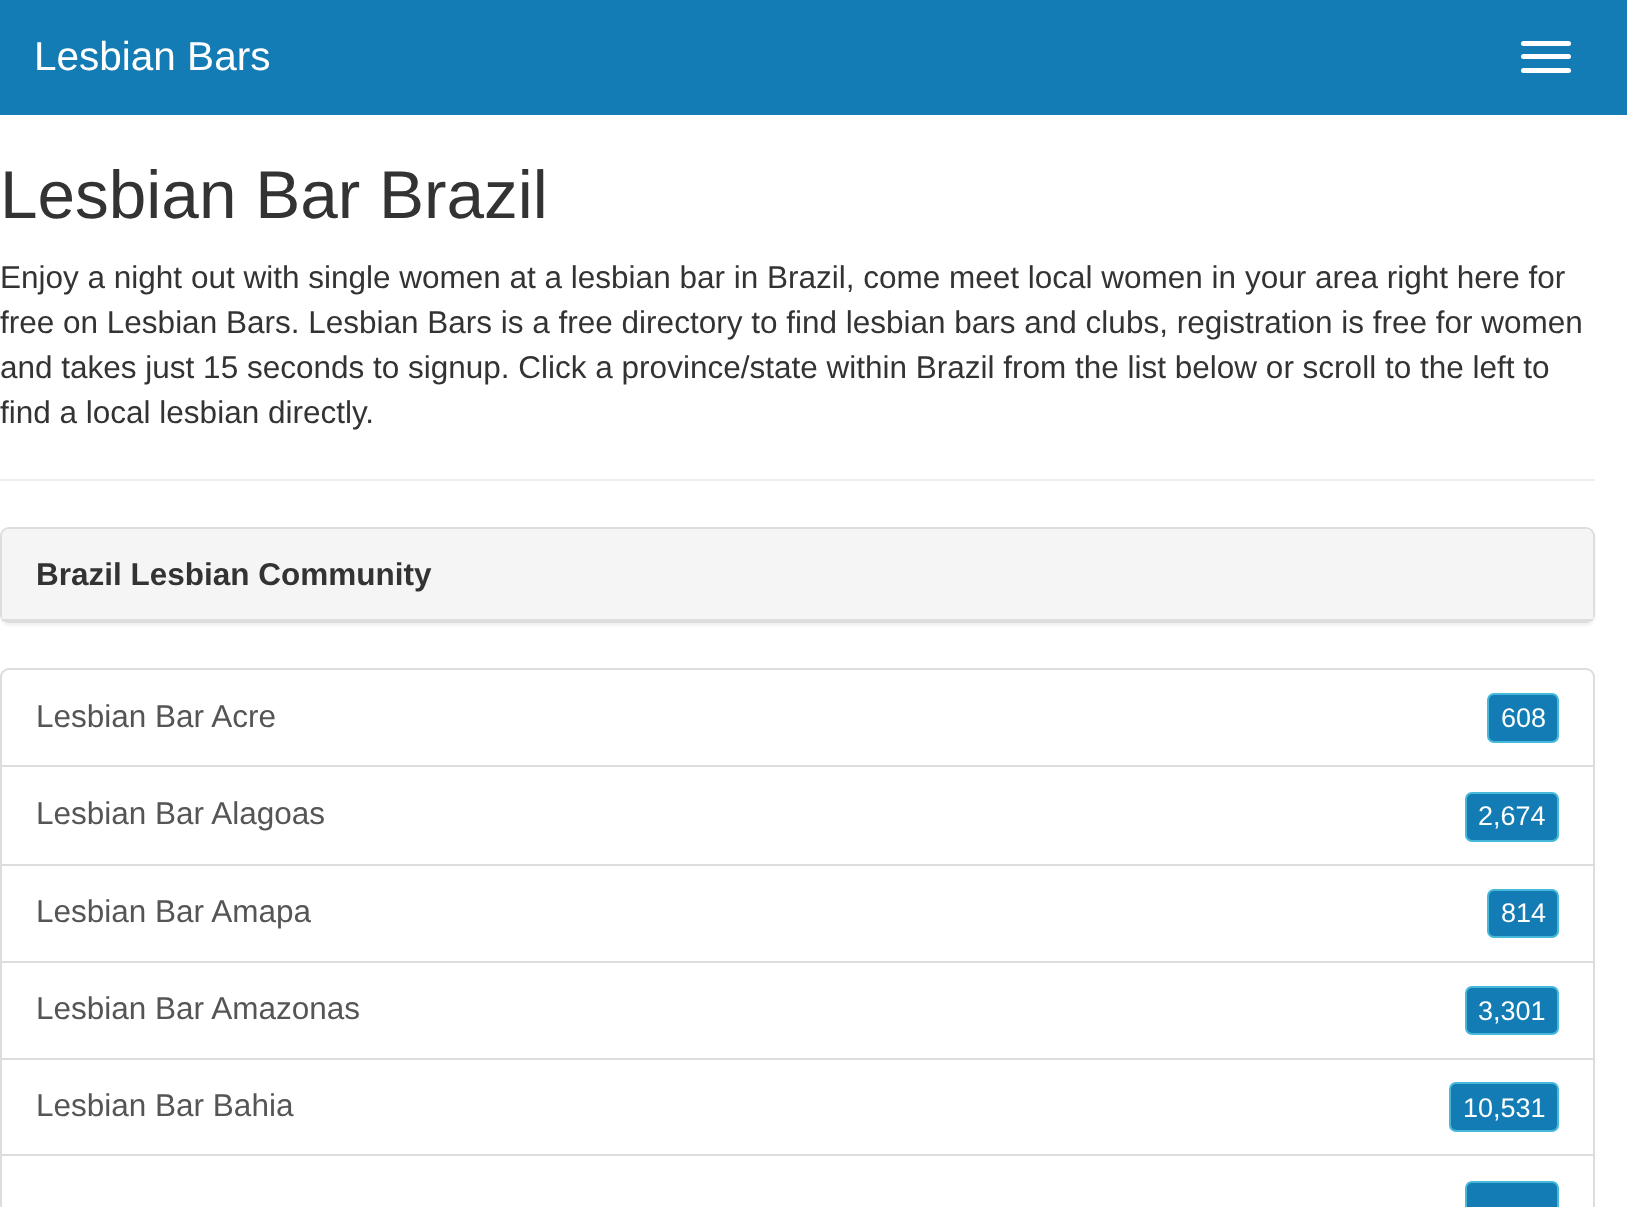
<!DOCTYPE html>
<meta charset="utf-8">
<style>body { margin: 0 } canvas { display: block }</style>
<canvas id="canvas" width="1627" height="1207"></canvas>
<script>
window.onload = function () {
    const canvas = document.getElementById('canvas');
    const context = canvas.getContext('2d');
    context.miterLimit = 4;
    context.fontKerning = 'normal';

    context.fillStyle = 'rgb(255, 255, 255)';
    context.fillRect(0, 0, 1627, 1207);
    context.fillStyle = 'rgb(19, 124, 180)';
    context.fillRect(0, 0, 1627, 115);
    context.fillStyle = 'rgb(255, 255, 255)';
    context.beginPath();
    context.roundRect(1521, 41, 50, 5, 2.5);
    context.fill();
    context.beginPath();
    context.roundRect(1521, 54, 50, 5, 2.5);
    context.fill();
    context.beginPath();
    context.roundRect(1521, 68, 50, 5, 2.5);
    context.fill();
    context.fillStyle = 'rgb(238, 238, 238)';
    context.fillRect(0, 479, 1595, 2);
    context.fillStyle = 'rgba(0, 0, 0, 0.05)';
    context.filter = 'blur(1px)';
    context.beginPath();
    context.roundRect(0, 529, 1595, 97, 9);
    context.fill();
    context.filter = 'none';
    context.beginPath();
    context.roundRect(1, 528, 1593, 94, 8);
    context.strokeStyle = 'rgb(221, 221, 221)';
    context.lineWidth = 2;
    context.stroke();
    context.fillStyle = 'rgb(245, 245, 245)';
    context.beginPath();
    context.roundRect(2, 529, 1591, 92, [7, 7, 0, 0]);
    context.fill();
    context.fillStyle = 'rgb(221, 221, 221)';
    context.fillRect(2, 619, 1591, 2);
    context.beginPath();
    context.roundRect(1, 669, 1593, 97, [8, 8, 0, 0]);
    context.stroke();
    context.fillStyle = 'rgb(19, 124, 180)';
    context.beginPath();
    context.roundRect(1488, 694, 70, 48, 6);
    context.fill();
    context.strokeStyle = 'rgb(70, 184, 218)';
    context.stroke();
    context.strokeStyle = 'rgb(221, 221, 221)';
    context.strokeRect(1, 766, 1593, 99);
    context.beginPath();
    context.roundRect(1466, 793, 92, 48, 6);
    context.fill();
    context.strokeStyle = 'rgb(70, 184, 218)';
    context.stroke();
    context.strokeStyle = 'rgb(221, 221, 221)';
    context.strokeRect(1, 865, 1593, 97);
    context.beginPath();
    context.roundRect(1488, 890, 70, 47, 6);
    context.fill();
    context.strokeStyle = 'rgb(70, 184, 218)';
    context.stroke();
    context.strokeStyle = 'rgb(221, 221, 221)';
    context.strokeRect(1, 962, 1593, 97);
    context.beginPath();
    context.roundRect(1466, 987, 92, 47, 6);
    context.fill();
    context.strokeStyle = 'rgb(70, 184, 218)';
    context.stroke();
    context.strokeStyle = 'rgb(221, 221, 221)';
    context.strokeRect(1, 1059, 1593, 97);
    context.beginPath();
    context.roundRect(1450, 1083, 108, 48, 6);
    context.fill();
    context.strokeStyle = 'rgb(70, 184, 218)';
    context.stroke();
    context.fillStyle = 'rgb(255, 255, 255)';
    context.fillRect(2, 1156, 1591, 1);
    context.strokeStyle = 'rgb(221, 221, 221)';
    context.strokeRect(1, 1155, 1593, 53);
    context.fillStyle = 'rgb(19, 124, 180)';
    context.beginPath();
    context.roundRect(1466, 1182, 92, 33, 6);
    context.fill();
    context.strokeStyle = 'rgb(70, 184, 218)';
    context.stroke();
    context.font = '40.5px Liberation Sans';
    context.fillStyle = 'rgb(255, 255, 255)';
    context.fillText('Lesbian Bars', 34, 70);
    context.font = '67.5px Liberation Sans';
    context.fillStyle = 'rgb(51, 51, 51)';
    context.fillText('Lesbian Bar Brazil', 0, 218);
    context.font = '31.5px Liberation Sans';
    context.fillText('Enjoy a night out with single women at a lesbian bar in Brazil, come meet local women in your area right here for', 0, 288);
    context.fillText('free on Lesbian Bars. Lesbian Bars is a free directory to find lesbian bars and clubs, registration is free for women', 0, 333);
    context.fillText('and takes just 15 seconds to signup. Click a province/state within Brazil from the list below or scroll to the left to', 0, 378);
    context.fillText('find a local lesbian directly.', 0, 423);
    context.font = 'bold 31.5px Liberation Sans';
    context.fillText('Brazil Lesbian Community', 36, 585);
    context.font = '31.5px Liberation Sans';
    context.fillStyle = 'rgb(85, 85, 85)';
    context.fillText('Lesbian Bar Acre', 36, 727);
    context.font = '27px Liberation Sans';
    context.fillStyle = 'rgb(255, 255, 255)';
    context.fillText('608', 1501, 727);
    context.font = '31.5px Liberation Sans';
    context.fillStyle = 'rgb(85, 85, 85)';
    context.fillText('Lesbian Bar Alagoas', 36, 824);
    context.font = '27px Liberation Sans';
    context.fillStyle = 'rgb(255, 255, 255)';
    context.fillText('2,674', 1478, 825);
    context.font = '31.5px Liberation Sans';
    context.fillStyle = 'rgb(85, 85, 85)';
    context.fillText('Lesbian Bar Amapa', 36, 922);
    context.font = '27px Liberation Sans';
    context.fillStyle = 'rgb(255, 255, 255)';
    context.fillText('814', 1501, 922);
    context.font = '31.5px Liberation Sans';
    context.fillStyle = 'rgb(85, 85, 85)';
    context.fillText('Lesbian Bar Amazonas', 36, 1019);
    context.font = '27px Liberation Sans';
    context.fillStyle = 'rgb(255, 255, 255)';
    context.fillText('3,301', 1478, 1020);
    context.font = '31.5px Liberation Sans';
    context.fillStyle = 'rgb(85, 85, 85)';
    context.fillText('Lesbian Bar Bahia', 36, 1116);
    context.font = '27px Liberation Sans';
    context.fillStyle = 'rgb(255, 255, 255)';
    context.fillText('10,531', 1463, 1117);
};
</script>
